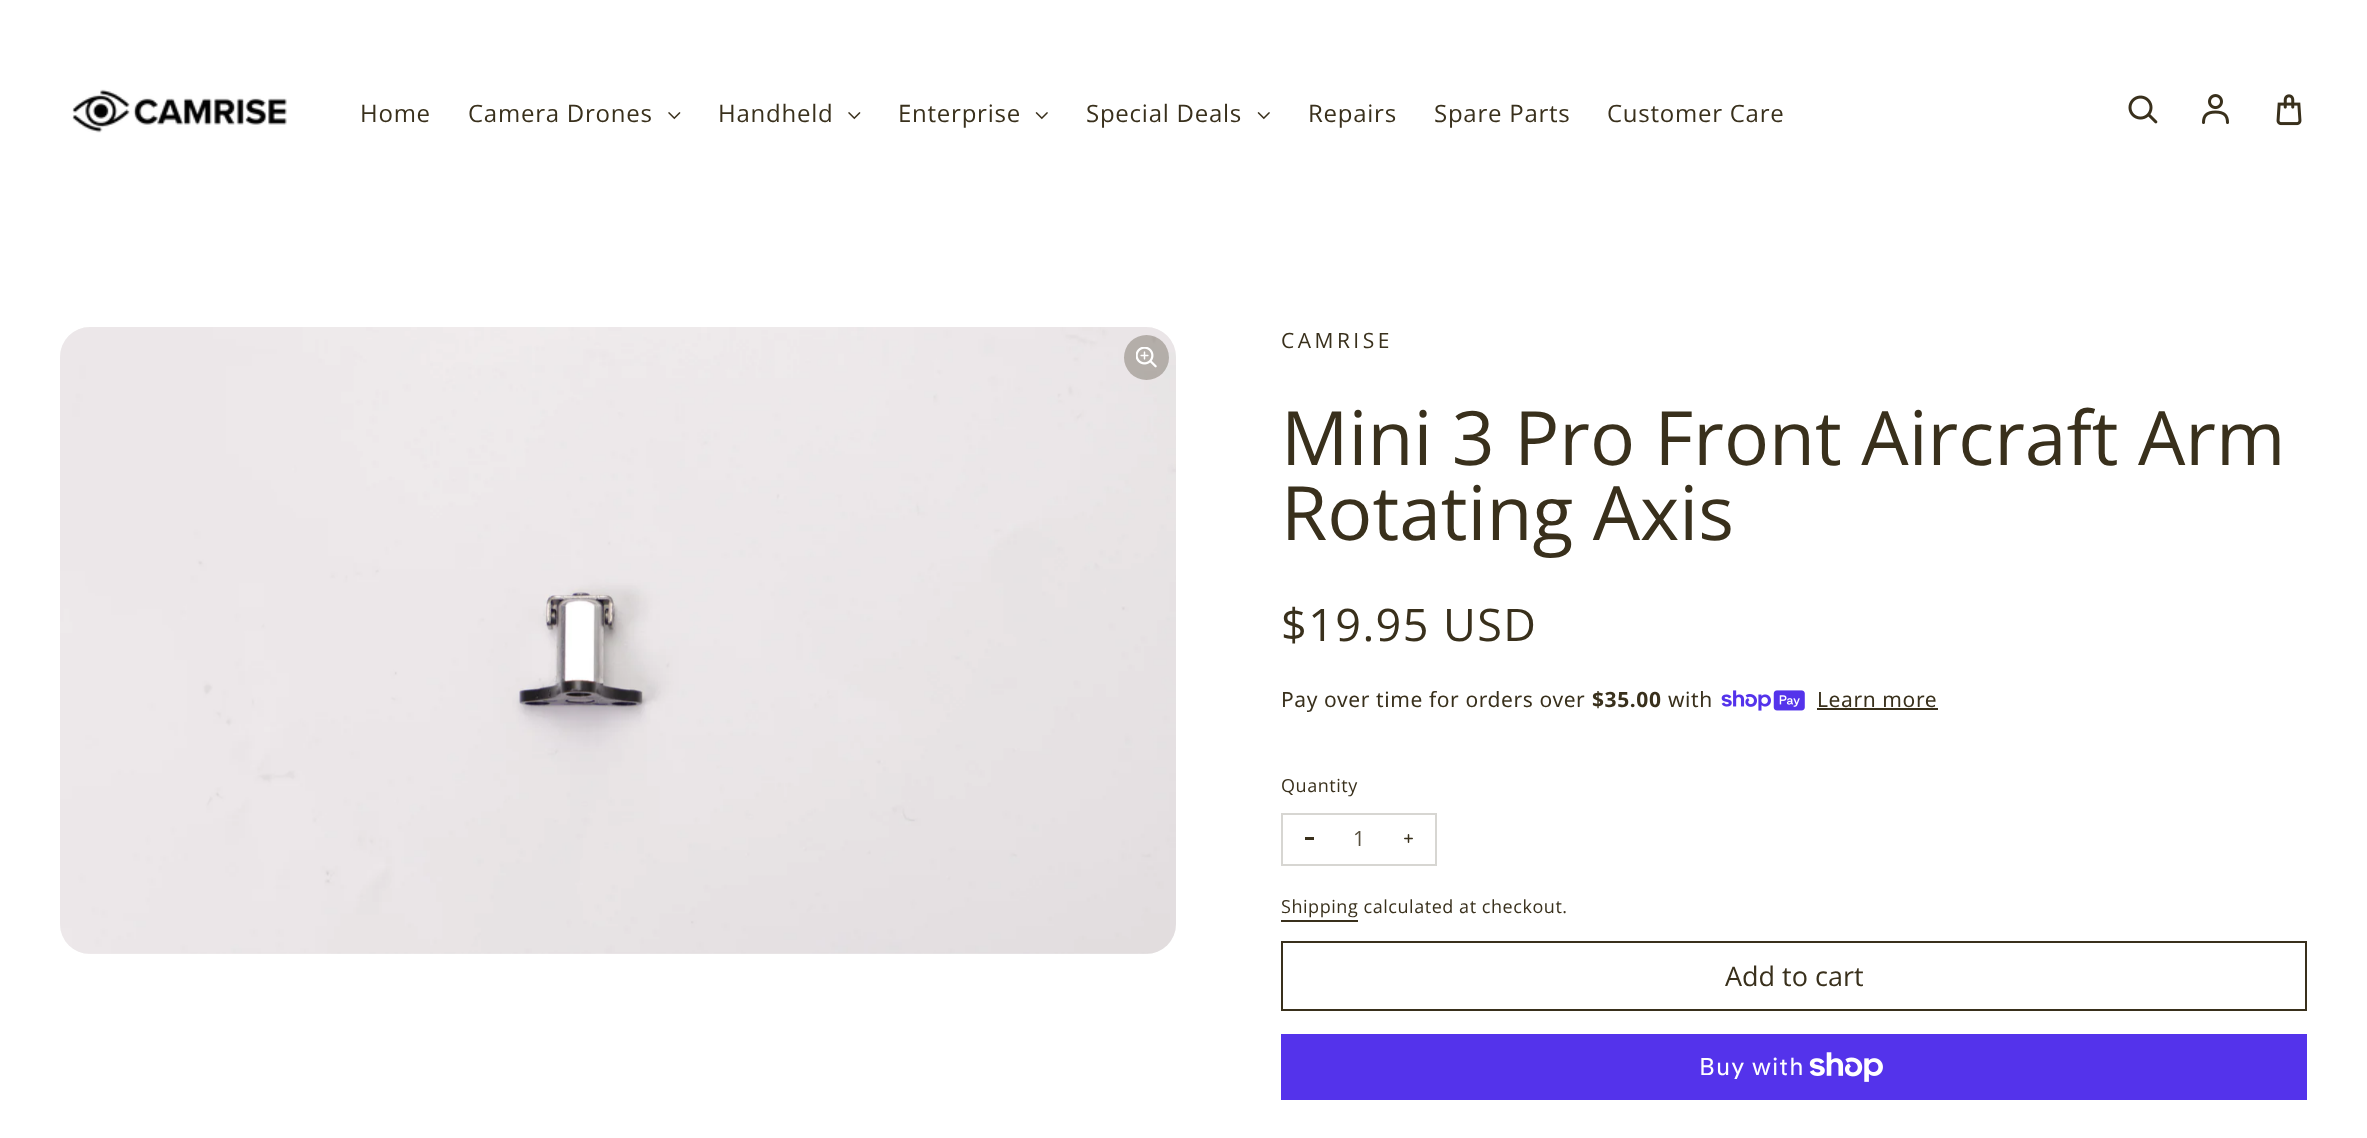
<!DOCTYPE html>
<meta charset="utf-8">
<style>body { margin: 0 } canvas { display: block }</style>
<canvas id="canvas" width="2367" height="1138"></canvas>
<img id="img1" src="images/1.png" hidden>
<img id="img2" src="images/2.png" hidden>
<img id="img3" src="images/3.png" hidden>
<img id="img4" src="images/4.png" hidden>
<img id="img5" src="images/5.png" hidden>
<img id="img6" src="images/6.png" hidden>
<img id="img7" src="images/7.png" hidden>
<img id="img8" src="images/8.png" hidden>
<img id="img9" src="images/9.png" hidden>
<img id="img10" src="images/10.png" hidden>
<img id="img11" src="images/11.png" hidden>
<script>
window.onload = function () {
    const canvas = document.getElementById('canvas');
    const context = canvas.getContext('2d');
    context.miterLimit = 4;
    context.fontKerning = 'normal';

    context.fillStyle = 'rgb(255, 255, 255)';
    context.fillRect(0, 0, 2367, 1138);
    context.drawImage(document.getElementById('img1'), 72, 89, 215, 44);
    context.drawImage(document.getElementById('img2'), 668, 112, 13, 8);
    context.drawImage(document.getElementById('img2'), 848, 112, 13, 8);
    context.drawImage(document.getElementById('img3'), 1035, 112, 13, 8);
    context.drawImage(document.getElementById('img3'), 1257, 112, 13, 8);
    context.drawImage(document.getElementById('img4'), 2128, 95, 30, 29);
    context.drawImage(document.getElementById('img5'), 2202, 94, 27, 30);
    context.drawImage(document.getElementById('img6'), 2276, 94, 26, 32);
    context.fillStyle = 'rgb(248, 248, 247)';
    context.beginPath();
    context.roundRect(60, 327, 1116, 627, 30);
    context.fill();
    context.drawImage(document.getElementById('img7'), 60, 327, 1116, 627);
    context.fillStyle = 'rgba(57, 48, 28, 0.3)';
    context.beginPath();
    context.arc(1146.5, 357.5, 22.5, 0, 2 * Math.PI);
    context.fill();
    context.drawImage(document.getElementById('img8'), 1136, 347, 21, 21);
    context.drawImage(document.getElementById('img9'), 1721, 690, 84, 21);
    context.fillStyle = 'rgb(57, 48, 28)';
    context.fillRect(1817, 708, 121, 2);
    context.fillRect(1305, 837, 9, 3);
    context.drawImage(document.getElementById('img10'), 1404, 834, 9, 9);
    context.strokeStyle = 'rgb(215, 214, 210)';
    context.lineWidth = 2;
    context.strokeRect(1282, 814, 154, 51);
    context.fillRect(1281, 920, 77, 2);
    context.strokeStyle = 'rgb(57, 48, 28)';
    context.strokeRect(1282, 942, 1024, 68);
    context.fillStyle = 'rgb(84, 51, 235)';
    context.fillRect(1281, 1034, 1026, 66);
    context.drawImage(document.getElementById('img11'), 1809, 1052, 74, 30);
    context.letterSpacing = '0.75px';
    context.font = '24px Open Sans';
    context.fillStyle = 'rgb(57, 48, 28)';
    context.fillText('Home', 360, 122);
    context.fillText('Camera Drones', 468, 122);
    context.fillText('Handheld', 718, 122);
    context.fillText('Enterprise', 898, 122);
    context.fillText('Special Deals', 1086, 122);
    context.fillText('Repairs', 1308, 122);
    context.fillText('Spare Parts', 1434, 122);
    context.fillText('Customer Care', 1607, 122);
    context.letterSpacing = '3.5px';
    context.font = '21px Open Sans';
    context.fillText('CAMRISE', 1281, 348);
    context.letterSpacing = '0px';
    context.font = '75px Open Sans';
    context.fillText('Mini 3 Pro Front Aircraft Arm', 1281, 465);
    context.fillText('Rotating Axis', 1281, 540);
    context.letterSpacing = '1.4px';
    context.font = '45px Open Sans';
    context.fillText('$19.95 USD', 1281, 641);
    context.letterSpacing = '0.6px';
    context.font = '21px Noto Sans';
    context.fillText('Pay over time for orders over', 1281, 707);
    context.font = 'bold 21px Noto Sans';
    context.fillText('$35.00', 1592, 707);
    context.font = '21px Noto Sans';
    context.fillText('with', 1668, 707);
    context.fillText('Learn more', 1817, 707);
    context.letterSpacing = '0.55px';
    context.font = '18px Open Sans';
    context.fillText('Quantity', 1281, 792);
    context.letterSpacing = '0px';
    context.font = '21px Open Sans';
    context.fillStyle = 'rgb(87, 79, 62)';
    context.fillText('1', 1353, 846);
    context.letterSpacing = '0.55px';
    context.font = '18px Open Sans';
    context.fillStyle = 'rgb(57, 48, 28)';
    context.fillText('Shipping calculated at checkout.', 1281, 913);
    context.letterSpacing = '0px';
    context.font = '27px Open Sans';
    context.fillText('Add to cart', 1725, 986);
    context.letterSpacing = '1px';
    context.font = '24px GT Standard';
    context.fillStyle = 'rgb(255, 255, 255)';
    context.fillText('Buy with', 1699, 1075);
};
</script>
